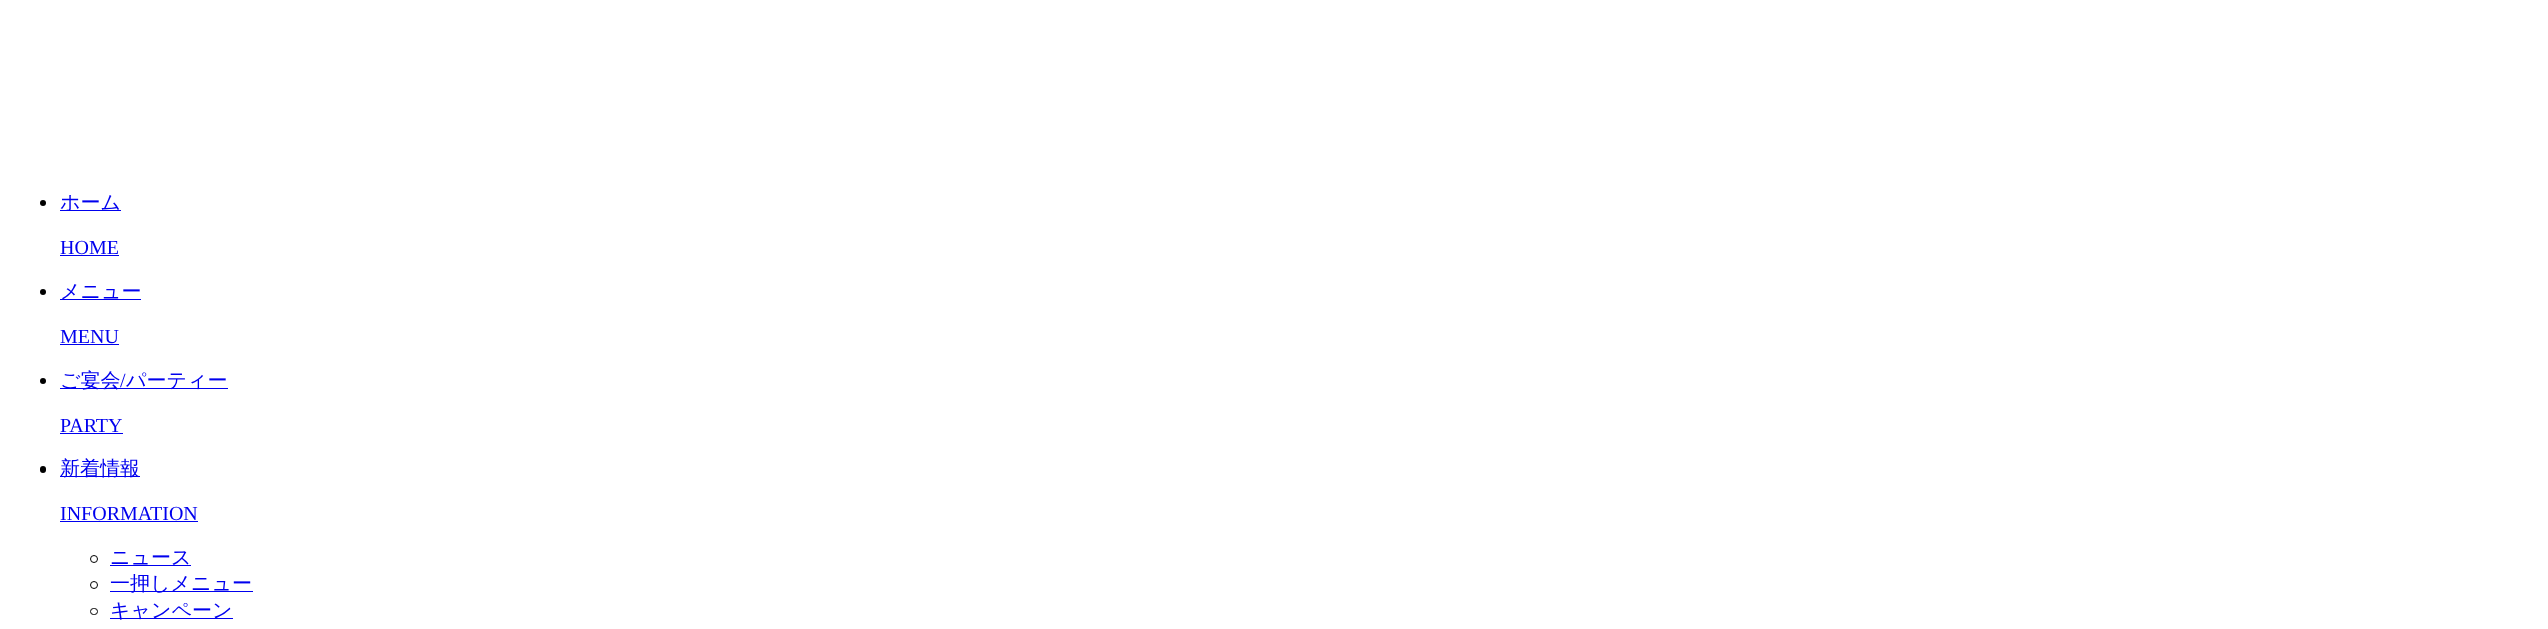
<!DOCTYPE html>
<meta charset="utf-8">
<style>body { margin: 0 } canvas { display: block }</style>
<canvas id="canvas" width="2548" height="629"></canvas>
<script>
window.onload = function () {
    const canvas = document.getElementById('canvas');
    const context = canvas.getContext('2d');
    context.miterLimit = 4;
    context.fontKerning = 'normal';

    context.fillStyle = 'rgb(255, 255, 255)';
    context.fillRect(0, 0, 2548, 629);
    context.fillStyle = 'rgb(0, 0, 0)';
    context.beginPath();
    context.arc(43, 203, 3, 0, 2 * Math.PI);
    context.fill();
    context.fillStyle = 'rgb(0, 0, 238)';
    context.fillRect(60, 210, 61, 1);
    context.fillRect(60, 255, 59, 1);
    context.fillStyle = 'rgb(0, 0, 0)';
    context.beginPath();
    context.arc(43, 292, 3, 0, 2 * Math.PI);
    context.fill();
    context.fillStyle = 'rgb(0, 0, 238)';
    context.fillRect(60, 299, 81, 1);
    context.fillRect(60, 344, 59, 1);
    context.fillStyle = 'rgb(0, 0, 0)';
    context.beginPath();
    context.arc(43, 381, 3, 0, 2 * Math.PI);
    context.fill();
    context.fillStyle = 'rgb(0, 0, 238)';
    context.fillRect(60, 388, 168, 1);
    context.fillRect(60, 433, 63, 1);
    context.fillStyle = 'rgb(0, 0, 0)';
    context.beginPath();
    context.roundRect(40, 466, 6, 7, 3);
    context.fill();
    context.fillStyle = 'rgb(0, 0, 238)';
    context.fillRect(60, 476, 80, 1);
    context.fillRect(60, 521, 138, 1);
    context.beginPath();
    context.arc(94, 559, 3.5, 0, 2 * Math.PI);
    context.strokeStyle = 'rgb(0, 0, 0)';
    context.stroke();
    context.fillRect(110, 565, 81, 1);
    context.beginPath();
    context.arc(94, 585, 3.5, 0, 2 * Math.PI);
    context.stroke();
    context.fillRect(110, 591, 143, 1);
    context.beginPath();
    context.roundRect(90.5, 608.5, 7, 6, 3);
    context.stroke();
    context.fillRect(110, 618, 123, 1);
    context.font = '500 20px WenQuanYi Zen Hei';
    context.fillText('ホーム', 60, 209);
    context.font = '20px Liberation Serif';
    context.fillText('HOME', 60, 254);
    context.font = '500 20px WenQuanYi Zen Hei';
    context.fillText('メニュー', 60, 298);
    context.font = '20px Liberation Serif';
    context.fillText('MENU', 60, 343);
    context.font = '500 20px WenQuanYi Zen Hei';
    context.fillText('ご宴会', 60, 387);
    context.font = '20px Liberation Serif';
    context.fillText('/', 120, 387);
    context.font = '500 20px WenQuanYi Zen Hei';
    context.fillText('パーティー', 126, 387);
    context.font = '20px Liberation Serif';
    context.fillText('PARTY', 60, 432);
    context.font = '500 20px WenQuanYi Zen Hei';
    context.fillText('新着情報', 60, 475);
    context.font = '20px Liberation Serif';
    context.fillText('INFORMATION', 60, 520);
    context.font = '500 20px WenQuanYi Zen Hei';
    context.fillText('ニュース', 110, 564);
    context.fillText('一押しメニュー', 110, 590);
    context.fillText('キャンペーン', 110, 617);
};
</script>
